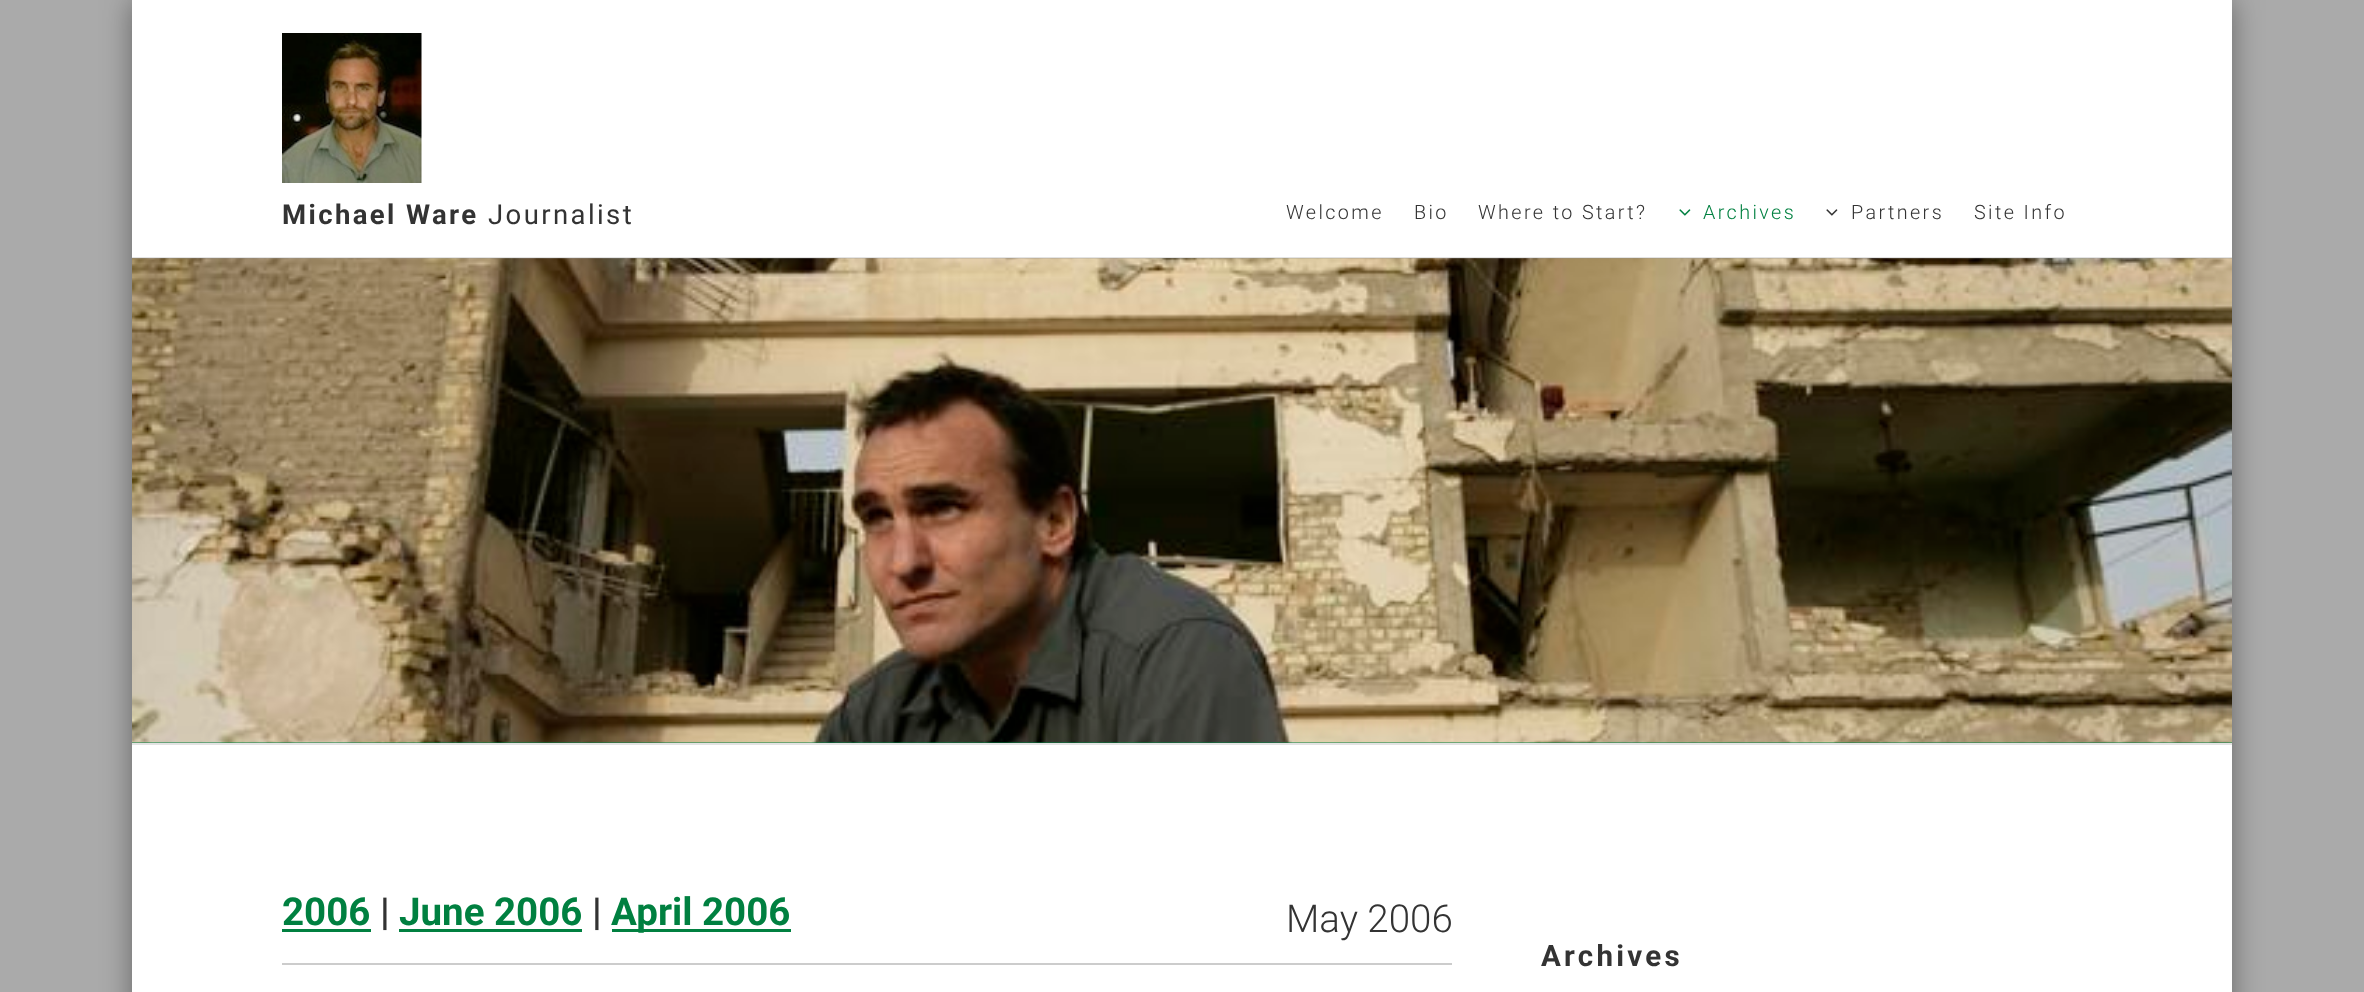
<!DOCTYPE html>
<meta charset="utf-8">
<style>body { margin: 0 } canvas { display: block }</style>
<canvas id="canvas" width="2364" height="992"></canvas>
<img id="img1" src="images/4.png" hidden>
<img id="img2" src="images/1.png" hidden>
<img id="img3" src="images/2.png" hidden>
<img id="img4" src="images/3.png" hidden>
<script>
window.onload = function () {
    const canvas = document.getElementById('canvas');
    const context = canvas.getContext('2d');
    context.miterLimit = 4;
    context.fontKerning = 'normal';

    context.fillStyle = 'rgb(170, 170, 170)';
    context.fillRect(0, 0, 2364, 992);
    context.fillStyle = 'rgba(0, 0, 0, 0.4)';
    context.filter = 'blur(15px)';
    context.beginPath();
    context.rect(132, 0, 2100, 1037);
    context.fill();
    context.filter = 'none';
    context.fillStyle = 'rgb(255, 255, 255)';
    context.fillRect(132, 0, 2100, 992);
    context.fillStyle = 'rgb(0, 128, 64)';
    context.fillRect(132, 742, 2100, 1);
    context.drawImage(document.getElementById('img1'), 132, 258, 2100, 485);
    context.fillStyle = 'rgba(144, 144, 144, 0.25)';
    context.fillRect(132, 257, 2100, 2);
    context.drawImage(document.getElementById('img2'), 282, 33, 140, 150);
    context.drawImage(document.getElementById('img3'), 1679, 209, 12, 7);
    context.drawImage(document.getElementById('img4'), 1826, 209, 12, 7);
    context.fillStyle = 'rgb(227, 227, 227)';
    context.fillRect(132, 743, 2100, 2);
    context.fillStyle = 'rgb(204, 204, 204)';
    context.fillRect(282, 963, 1170, 2);
    context.fillStyle = 'rgb(0, 128, 64)';
    context.fillRect(282, 929, 89, 3);
    context.fillRect(399, 929, 183, 3);
    context.fillRect(612, 929, 179, 3);
    context.letterSpacing = '2.4px';
    context.font = 'bold 27.5px Roboto';
    context.fillStyle = 'rgb(51, 51, 51)';
    context.fillText('Michael Ware', 282, 224);
    context.font = '27.5px Roboto';
    context.fillText('Journalist', 488, 224);
    context.font = '300 19.75px Roboto';
    context.fillText('Welcome', 1286, 219);
    context.fillText('Bio', 1414, 219);
    context.fillText('Where to Start?', 1478, 219);
    context.fillStyle = 'rgb(0, 128, 64)';
    context.fillText('Archives', 1703, 219);
    context.fillStyle = 'rgb(51, 51, 51)';
    context.fillText('Partners', 1851, 219);
    context.fillText('Site Info', 1974, 219);
    context.letterSpacing = '0px';
    context.font = 'bold 38.5px Roboto';
    context.fillStyle = 'rgb(0, 128, 64)';
    context.fillText('2006', 282, 925);
    context.fillStyle = 'rgb(51, 51, 51)';
    context.fillText('|', 380, 925);
    context.fillStyle = 'rgb(0, 128, 64)';
    context.fillText('June 2006', 399, 925);
    context.fillStyle = 'rgb(51, 51, 51)';
    context.fillText('|', 592, 925);
    context.fillStyle = 'rgb(0, 128, 64)';
    context.fillText('April 2006', 611, 925);
    context.font = '300 38.5px Roboto';
    context.fillStyle = 'rgb(51, 51, 51)';
    context.fillText('May 2006', 1286, 932);
    context.letterSpacing = '3.25px';
    context.font = 'bold 29.5px Roboto';
    context.fillText('Archives', 1541, 966);
};
</script>
